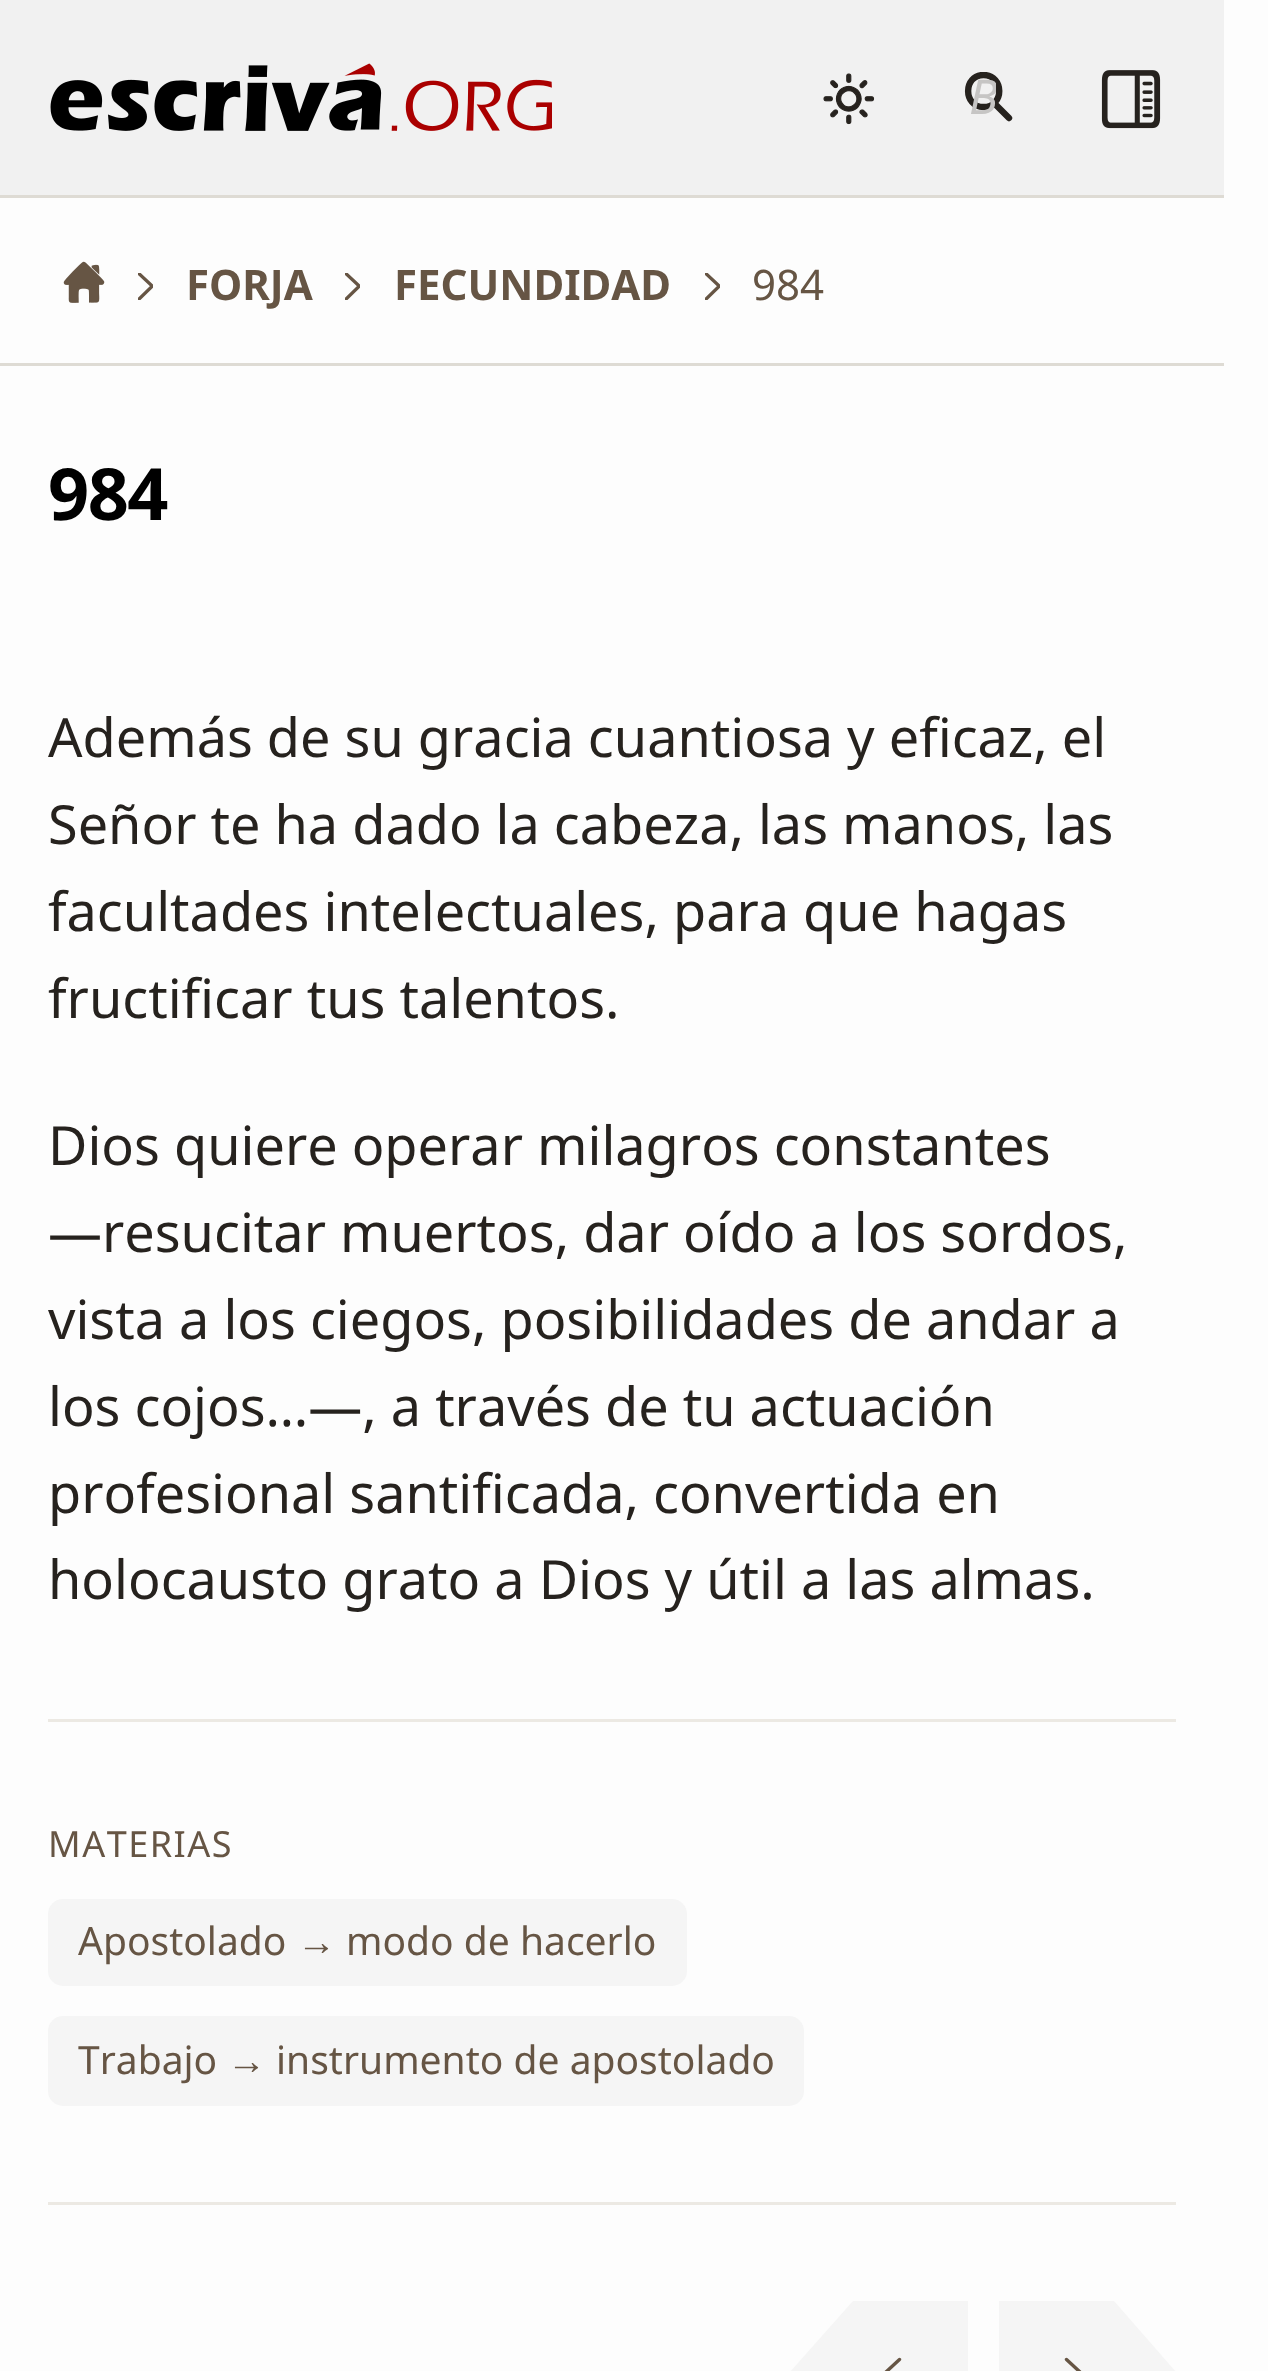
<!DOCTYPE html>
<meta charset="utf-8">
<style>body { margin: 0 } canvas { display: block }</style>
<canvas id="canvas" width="1268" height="2371"></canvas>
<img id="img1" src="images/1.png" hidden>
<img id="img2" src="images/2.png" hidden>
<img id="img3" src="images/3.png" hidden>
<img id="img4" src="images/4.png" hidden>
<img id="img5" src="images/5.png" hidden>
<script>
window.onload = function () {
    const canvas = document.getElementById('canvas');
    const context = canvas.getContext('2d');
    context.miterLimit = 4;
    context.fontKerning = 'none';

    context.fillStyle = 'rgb(253, 253, 253)';
    context.fillRect(0, 0, 1268, 2371);
    context.fillStyle = 'rgb(241, 241, 241)';
    context.fillRect(0, 0, 1224, 195);
    context.fillStyle = 'rgb(222, 219, 212)';
    context.fillRect(0, 195, 1224, 3);
    context.drawImage(document.getElementById('img1'), 50, 63, 502, 68);
    context.drawImage(document.getElementById('img2'), 823, 73, 52, 52);
    context.save();
    context.beginPath();
    context.rect(963, 72, 51, 51);
    context.clip();
    context.beginPath();
    context.moveTo(995, 104);
    context.lineTo(1009, 118);
    context.moveTo(983.5, 75);
    context.bezierCurveTo(1004.5, 75, 1004.5, 107, 983.5, 107);
    context.bezierCurveTo(963, 107, 963, 75, 983.5, 75);
    context.closePath();
    context.strokeStyle = 'rgb(38, 34, 30)';
    context.lineWidth = 6.4;
    context.lineCap = 'round';
    context.stroke();
    context.restore();
    context.drawImage(document.getElementById('img3'), 1101, 70, 60, 59);
    context.fillRect(0, 363, 1224, 3);
    context.drawImage(document.getElementById('img4'), 63, 261, 42, 42);
    context.drawImage(document.getElementById('img5'), 138, 273, 15, 27);
    context.drawImage(document.getElementById('img5'), 345, 273, 15, 27);
    context.drawImage(document.getElementById('img5'), 705, 273, 15, 27);
    context.fillStyle = 'rgb(236, 233, 227)';
    context.fillRect(48, 1719, 1128, 3);
    context.fillStyle = 'rgb(245, 245, 245)';
    context.beginPath();
    context.roundRect(48, 1899, 639, 87, 15);
    context.fill();
    context.beginPath();
    context.roundRect(48, 2016, 756, 90, 15);
    context.fill();
    context.fillStyle = 'rgb(236, 233, 227)';
    context.fillRect(48, 2202, 1128, 3);
    context.fillStyle = 'rgb(245, 245, 245)';
    context.beginPath();
    context.moveTo(852, 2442);
    context.lineTo(790, 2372);
    context.lineTo(853, 2301);
    context.lineTo(968, 2301);
    context.lineTo(968, 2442);
    context.closePath();
    context.fill();
    context.beginPath();
    context.moveTo(899.5, 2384.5);
    context.lineTo(886, 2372);
    context.lineTo(899.5, 2359.5);
    context.strokeStyle = 'rgb(102, 85, 68)';
    context.lineWidth = 3.4;
    context.lineCap = 'round';
    context.lineJoin = 'round';
    context.stroke();
    context.beginPath();
    context.moveTo(999, 2301);
    context.lineTo(1114, 2301);
    context.lineTo(1176, 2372);
    context.lineTo(1114, 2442);
    context.lineTo(999, 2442);
    context.closePath();
    context.fill();
    context.beginPath();
    context.moveTo(1066.5, 2359.5);
    context.lineTo(1080, 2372);
    context.lineTo(1066.5, 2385);
    context.stroke();
    context.save();
    context.beginPath();
    context.rect(969, 63, 27, 66);
    context.clip();
    context.font = 'italic 48px Noto Sans';
    context.fillStyle = 'rgb(198, 197, 196)';
    context.fillText('B', 969, 114);
    context.restore();
    context.font = 'bold 42px Noto Sans';
    context.fillStyle = 'rgb(102, 85, 68)';
    context.fillText('FORJA', 186, 300);
    context.fillText('FECUNDIDAD', 394, 300);
    context.font = '42px Noto Sans';
    context.fillText('984', 752, 300);
    context.letterSpacing = '-1.5px';
    context.font = 'bold 72px Noto Sans';
    context.fillStyle = 'rgb(0, 0, 0)';
    context.fillText('984', 48, 520);
    context.letterSpacing = '0px';
    context.font = '54px Noto Sans';
    context.fillStyle = 'rgb(38, 34, 30)';
    context.fillText('Además de su gracia cuantiosa y eficaz, el', 48, 757);
    context.fillText('Señor te ha dado la cabeza, las manos, las', 48, 844);
    context.fillText('facultades intelectuales, para que hagas', 48, 931);
    context.fillText('fructificar tus talentos.', 48, 1018);
    context.fillText('Dios quiere operar milagros constantes', 48, 1165);
    context.fillText('—resucitar muertos, dar oído a los sordos,', 48, 1252);
    context.fillText('vista a los ciegos, posibilidades de andar a', 48, 1339);
    context.fillText('los cojos…—, a través de tu actuación', 48, 1426);
    context.fillText('profesional santificada, convertida en', 48, 1513);
    context.fillText('holocausto grato a Dios y útil a las almas.', 48, 1599);
    context.letterSpacing = '1.5px';
    context.font = '36px Noto Sans';
    context.fillStyle = 'rgb(102, 85, 68)';
    context.fillText('MATERIAS', 48, 1857);
    context.letterSpacing = '0px';
    context.font = '39px Noto Sans';
    context.fillText('Apostolado', 78, 1955);
    context.font = '39px Liberation Sans';
    context.fillText('→', 297, 1955);
    context.font = '39px Noto Sans';
    context.fillText('modo de hacerlo', 346, 1955);
    context.fillText('Trabajo', 78, 2074);
    context.font = '39px Liberation Sans';
    context.fillText('→', 227, 2074);
    context.font = '39px Noto Sans';
    context.fillText('instrumento de apostolado', 276, 2074);
};
</script>
